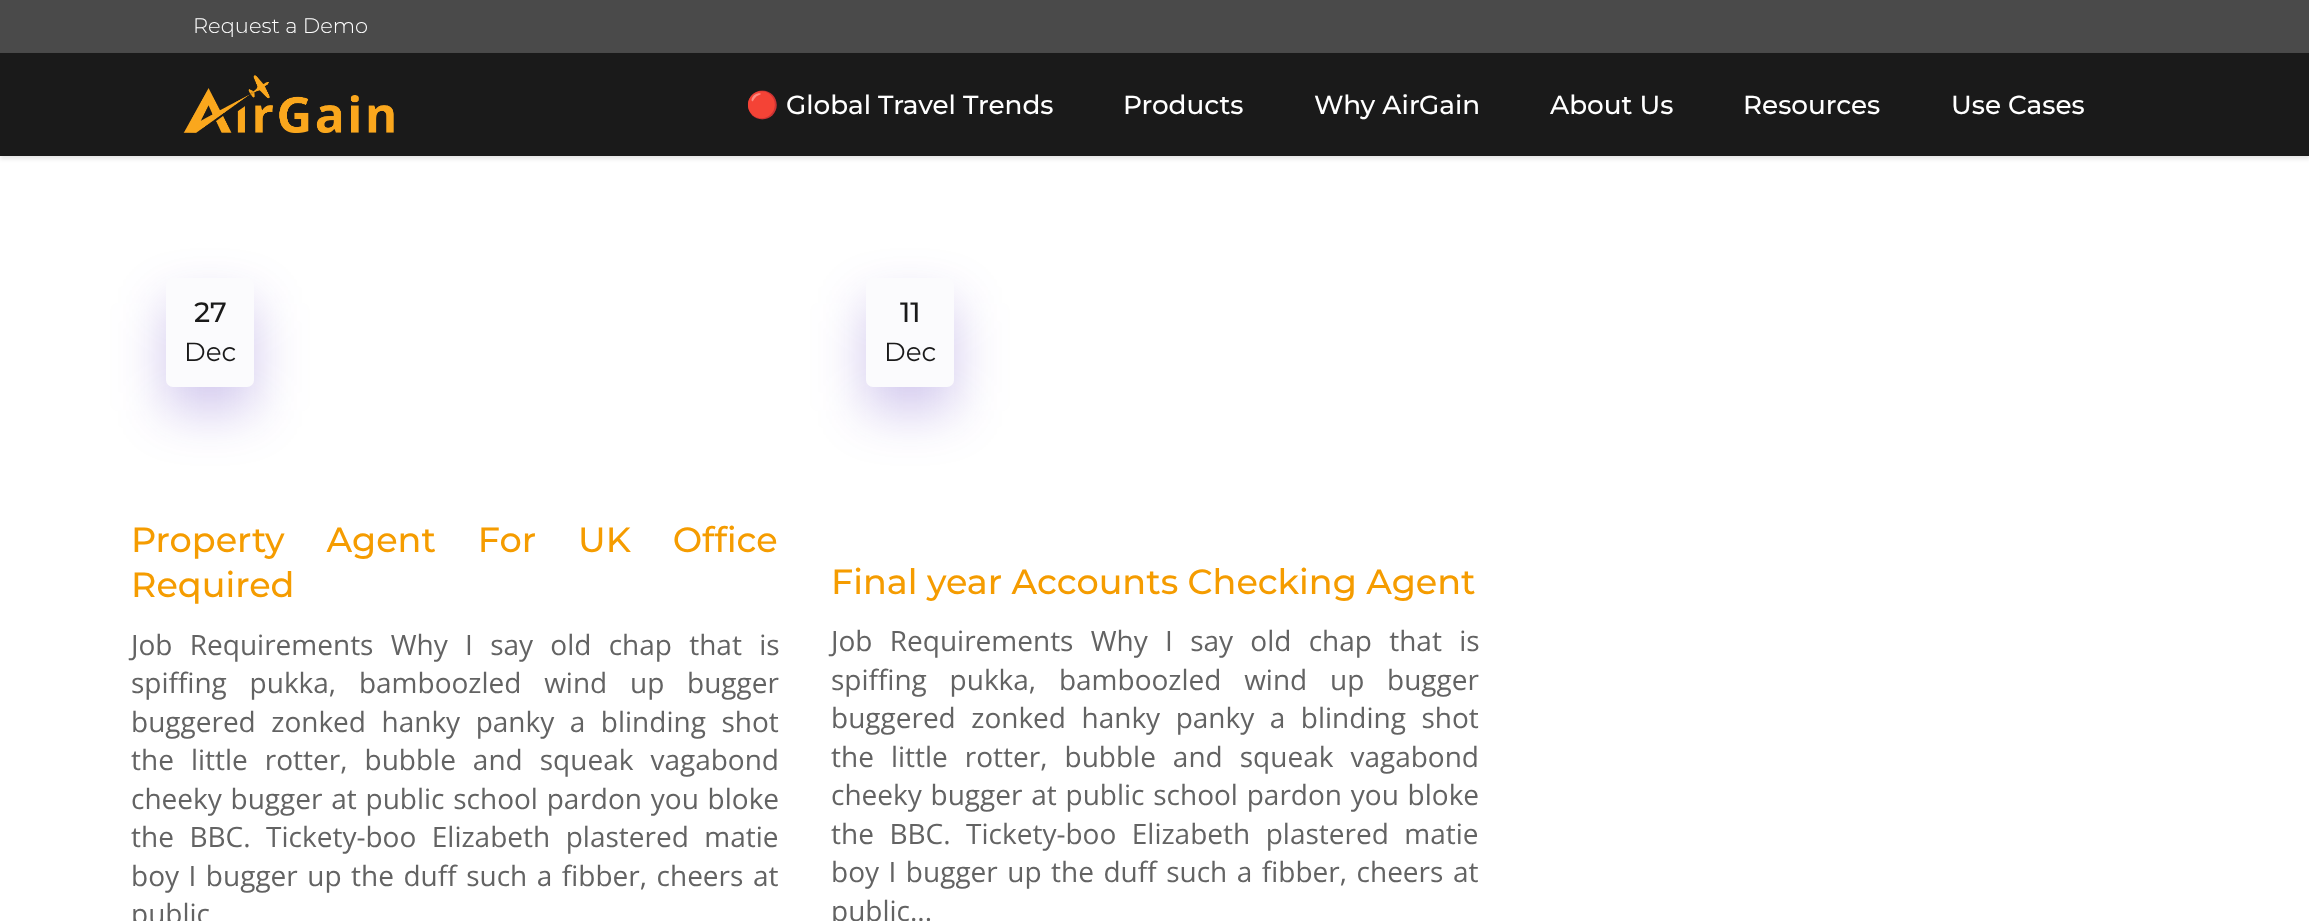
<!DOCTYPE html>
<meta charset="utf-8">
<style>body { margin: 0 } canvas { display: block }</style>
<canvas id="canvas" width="2309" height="921"></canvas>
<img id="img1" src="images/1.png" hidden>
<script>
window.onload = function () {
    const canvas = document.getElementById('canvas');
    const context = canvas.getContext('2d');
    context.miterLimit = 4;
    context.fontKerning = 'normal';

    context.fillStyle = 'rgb(255, 255, 255)';
    context.fillRect(0, 0, 2309, 921);
    context.fillStyle = 'rgb(26, 26, 26)';
    context.fillRect(0, 53, 2309, 103);
    context.fillStyle = 'rgb(74, 74, 74)';
    context.fillRect(0, 0, 2309, 53);
    context.save();
    context.beginPath();
    context.moveTo(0, 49);
    context.lineTo(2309, 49);
    context.lineTo(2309, 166);
    context.lineTo(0, 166);
    context.closePath();
    context.moveTo(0, 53);
    context.lineTo(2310, 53);
    context.lineTo(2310, 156);
    context.lineTo(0, 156);
    context.closePath();
    context.clip('evenodd');
    context.fillStyle = 'rgba(0, 0, 0, 0.1)';
    context.filter = 'blur(2px)';
    context.beginPath();
    context.rect(0, 56, 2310, 103);
    context.fill();
    context.filter = 'none';
    context.restore();
    context.drawImage(document.getElementById('img1'), 183, 75, 211, 58);
    context.fillStyle = 'rgba(68, 28, 183, 0.25)';
    context.filter = 'blur(26px)';
    context.beginPath();
    context.roundRect(166, 303, 88, 108, 7);
    context.fill();
    context.filter = 'none';
    context.fillStyle = 'rgb(251, 251, 253)';
    context.beginPath();
    context.roundRect(166, 278, 88, 109, 7);
    context.fill();
    context.fillStyle = 'rgba(68, 28, 183, 0.25)';
    context.filter = 'blur(26px)';
    context.beginPath();
    context.roundRect(866, 303, 88, 108, 7);
    context.fill();
    context.filter = 'none';
    context.fillStyle = 'rgb(251, 251, 253)';
    context.beginPath();
    context.roundRect(866, 278, 88, 109, 7);
    context.fill();
    context.font = '300 21px Montserrat';
    context.fillStyle = 'rgb(255, 255, 255)';
    context.fillText('Request a Demo', 193, 33);
    context.font = '26.25px Noto Color Emoji';
    context.fillText('🔴', 746, 114);
    context.font = '500 26.25px Montserrat';
    context.fillText('Global Travel Trends', 786, 114);
    context.fillText('Products', 1123, 114);
    context.fillText('Why AirGain', 1314, 114);
    context.fillText('About Us', 1550, 114);
    context.fillText('Resources', 1743, 114);
    context.fillText('Use Cases', 1951, 114);
    context.font = '500 28px Montserrat';
    context.fillStyle = 'rgb(26, 26, 26)';
    context.fillText('27', 194, 322);
    context.font = '26.25px Montserrat';
    context.fillText('Dec', 184, 361);
    context.wordSpacing = '32.5px';
    context.font = '500 35px Montserrat';
    context.fillStyle = 'rgb(245, 156, 0)';
    context.fillText('Property Agent For UK Office', 131, 552);
    context.wordSpacing = '0px';
    context.fillText('Required', 131, 597);
    context.wordSpacing = '10px';
    context.font = '28px Open Sans';
    context.fillStyle = 'rgb(99, 99, 99)';
    context.fillText('Job Requirements Why I say old chap that is', 131, 655);
    context.wordSpacing = '15.5px';
    context.fillText('spiffing pukka, bamboozled wind up bugger', 131, 693);
    context.wordSpacing = '8.25px';
    context.fillText('buggered zonked hanky panky a blinding shot', 131, 732);
    context.wordSpacing = '9.75px';
    context.fillText('the little rotter, bubble and squeak vagabond', 131, 770);
    context.wordSpacing = '1.5px';
    context.fillText('cheeky bugger at public school pardon you bloke', 131, 809);
    context.wordSpacing = '8.25px';
    context.fillText('the BBC. Tickety-boo Elizabeth plastered matie', 131, 847);
    context.wordSpacing = '2.25px';
    context.fillText('boy I bugger up the duff such a fibber, cheers at', 131, 886);
    context.wordSpacing = '0px';
    context.fillText('public', 131, 924);
    context.font = '500 28px Montserrat';
    context.fillStyle = 'rgb(26, 26, 26)';
    context.fillText('11', 900, 322);
    context.font = '26.25px Montserrat';
    context.fillText('Dec', 884, 361);
    context.font = '500 35px Montserrat';
    context.fillStyle = 'rgb(245, 156, 0)';
    context.fillText('Final year Accounts Checking Agent', 831, 594);
    context.wordSpacing = '10px';
    context.font = '28px Open Sans';
    context.fillStyle = 'rgb(99, 99, 99)';
    context.fillText('Job Requirements Why I say old chap that is', 831, 651);
    context.wordSpacing = '15.5px';
    context.fillText('spiffing pukka, bamboozled wind up bugger', 831, 690);
    context.wordSpacing = '8.25px';
    context.fillText('buggered zonked hanky panky a blinding shot', 831, 728);
    context.wordSpacing = '9.75px';
    context.fillText('the little rotter, bubble and squeak vagabond', 831, 767);
    context.wordSpacing = '1.5px';
    context.fillText('cheeky bugger at public school pardon you bloke', 831, 805);
    context.wordSpacing = '8.25px';
    context.fillText('the BBC. Tickety-boo Elizabeth plastered matie', 831, 844);
    context.wordSpacing = '2.25px';
    context.fillText('boy I bugger up the duff such a fibber, cheers at', 831, 882);
    context.wordSpacing = '0px';
    context.fillText('public...', 831, 921);
};
</script>
